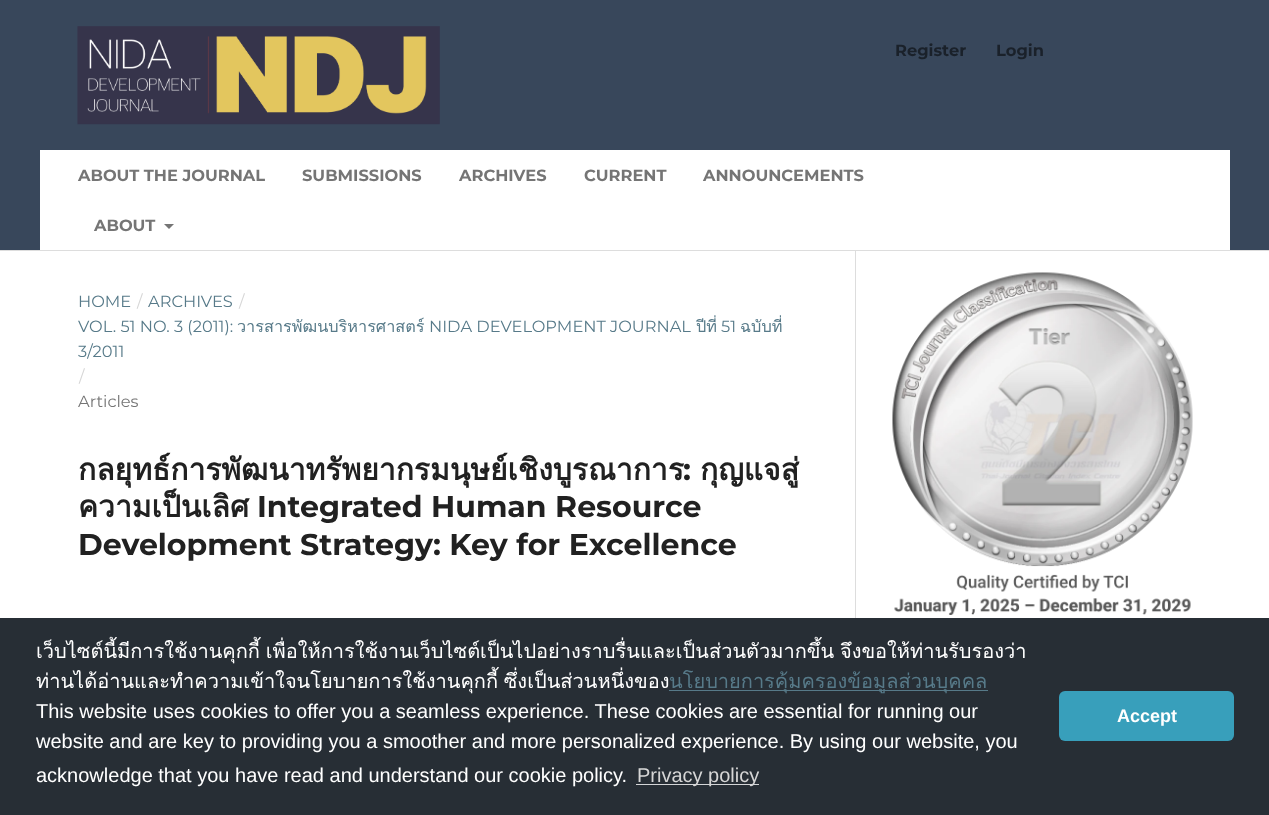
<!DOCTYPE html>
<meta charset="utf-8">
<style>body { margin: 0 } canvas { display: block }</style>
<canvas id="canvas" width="1269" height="815"></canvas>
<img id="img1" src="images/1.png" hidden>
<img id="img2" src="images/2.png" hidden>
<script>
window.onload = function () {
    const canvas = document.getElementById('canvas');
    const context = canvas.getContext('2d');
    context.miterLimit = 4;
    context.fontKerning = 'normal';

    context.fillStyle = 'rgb(255, 255, 255)';
    context.fillRect(0, 0, 1269, 815);
    context.fillStyle = 'rgb(56, 71, 91)';
    context.fillRect(0, 0, 1269, 250);
    context.fillStyle = 'rgb(221, 221, 221)';
    context.fillRect(0, 250, 1269, 1);
    context.drawImage(document.getElementById('img1'), 77, 26, 363, 99);
    context.fillStyle = 'rgb(255, 255, 255)';
    context.fillRect(40, 150, 1190, 100);
    context.fillStyle = 'rgb(117, 117, 117)';
    context.beginPath();
    context.moveTo(164, 224);
    context.lineTo(174, 224);
    context.lineTo(169, 229);
    context.closePath();
    context.fill();
    context.fillStyle = 'rgb(221, 221, 221)';
    context.fillRect(855, 251, 1, 367);
    context.drawImage(document.getElementById('img2'), 892, 272, 301, 343);
    context.fillStyle = 'rgb(39, 46, 53)';
    context.fillRect(0, 618, 1269, 197);
    context.fillStyle = 'rgb(87, 122, 137)';
    context.fillRect(669, 690, 319, 1);
    context.fillStyle = 'rgb(212, 213, 215)';
    context.fillRect(636, 784, 123, 1);
    context.fillStyle = 'rgb(56, 159, 187)';
    context.beginPath();
    context.roundRect(1059, 691, 175, 50, 6);
    context.fill();
    context.font = 'bold 16.25px Montserrat';
    context.fillStyle = 'rgb(26, 33, 42)';
    context.fillText('Register', 895, 56);
    context.fillText('Login', 996, 56);
    context.fillStyle = 'rgb(117, 117, 117)';
    context.fillText('ABOUT THE JOURNAL', 78, 181);
    context.fillText('SUBMISSIONS', 302, 181);
    context.fillText('ARCHIVES', 459, 181);
    context.fillText('CURRENT', 584, 181);
    context.fillText('ANNOUNCEMENTS', 703, 181);
    context.fillText('ABOUT', 94, 231);
    context.font = '16.25px Montserrat';
    context.fillStyle = 'rgb(87, 122, 137)';
    context.fillText('HOME', 78, 307);
    context.fillStyle = 'rgb(214, 214, 214)';
    context.fillText('/', 137, 307);
    context.fillStyle = 'rgb(87, 122, 137)';
    context.fillText('ARCHIVES', 148, 307);
    context.fillStyle = 'rgb(214, 214, 214)';
    context.fillText('/', 239, 307);
    context.fillStyle = 'rgb(87, 122, 137)';
    context.fillText('VOL. 51 NO. 3 (2011):', 78, 332);
    context.font = '16.25px Loma';
    context.fillText('วารสารพัฒนบริหารศาสตร์', 237, 332);
    context.font = '16.25px Montserrat';
    context.fillText('NIDA DEVELOPMENT JOURNAL', 429, 332);
    context.font = '16.25px Loma';
    context.fillText('ปีที่', 696, 332);
    context.font = '16.25px Montserrat';
    context.fillText('51', 721, 332);
    context.font = '16.25px Loma';
    context.fillText('ฉบับที่', 740, 332);
    context.font = '16.25px Montserrat';
    context.fillText('3/2011', 78, 357);
    context.fillStyle = 'rgb(214, 214, 214)';
    context.fillText('/', 79, 382);
    context.fillStyle = 'rgb(117, 117, 117)';
    context.fillText('Articles', 78, 407);
    context.font = 'bold 30px Loma';
    context.fillStyle = 'rgb(33, 33, 33)';
    context.fillText('กลยุทธ์การพัฒนาทรัพยากรมนุษย์เชิงบูรณาการ', 78, 480);
    context.font = 'bold 30px Montserrat';
    context.fillText(':', 683, 480);
    context.font = 'bold 30px Loma';
    context.fillText('กุญแจสู่', 700, 480);
    context.fillText('ความเป็นเลิศ', 78, 517);
    context.font = 'bold 30px Montserrat';
    context.fillText('Integrated Human Resource', 257, 517);
    context.fillText('Development Strategy: Key for Excellence', 78, 555);
    context.wordSpacing = '-1px';
    context.font = '20px Loma';
    context.fillStyle = 'rgb(255, 255, 255)';
    context.fillText('เว็บไซต์นี้มีการใช้งานคุกกี้ เพื่อให้การใช้งานเว็บไซต์เป็นไปอย่างราบรื่นและเป็นส่วนตัวมากขึ้น จึงขอให้ท่านรับรองว่า', 36, 658);
    context.fillText('ท่านได้อ่านและทำความเข้าใจนโยบายการใช้งานคุกกี้ ซึ่งเป็นส่วนหนึ่งของ', 36, 688);
    context.wordSpacing = '0px';
    context.fillStyle = 'rgb(87, 122, 137)';
    context.fillText('นโยบายการคุ้มครองข้อมูลส่วนบุคคล', 669, 688);
    context.font = '20px Liberation Sans';
    context.fillStyle = 'rgb(255, 255, 255)';
    context.fillText('This website uses cookies to offer you a seamless experience. These cookies are essential for running our', 36, 718);
    context.fillText('website and are key to providing you a smoother and more personalized experience. By using our website, you', 36, 748);
    context.fillText('acknowledge that you have read and understand our cookie policy.', 36, 782);
    context.fillStyle = 'rgb(214, 214, 214)';
    context.fillText('Privacy policy', 637, 782);
    context.font = 'bold 18px Liberation Sans';
    context.fillStyle = 'rgb(255, 255, 255)';
    context.fillText('Accept', 1117, 722);
};
</script>
